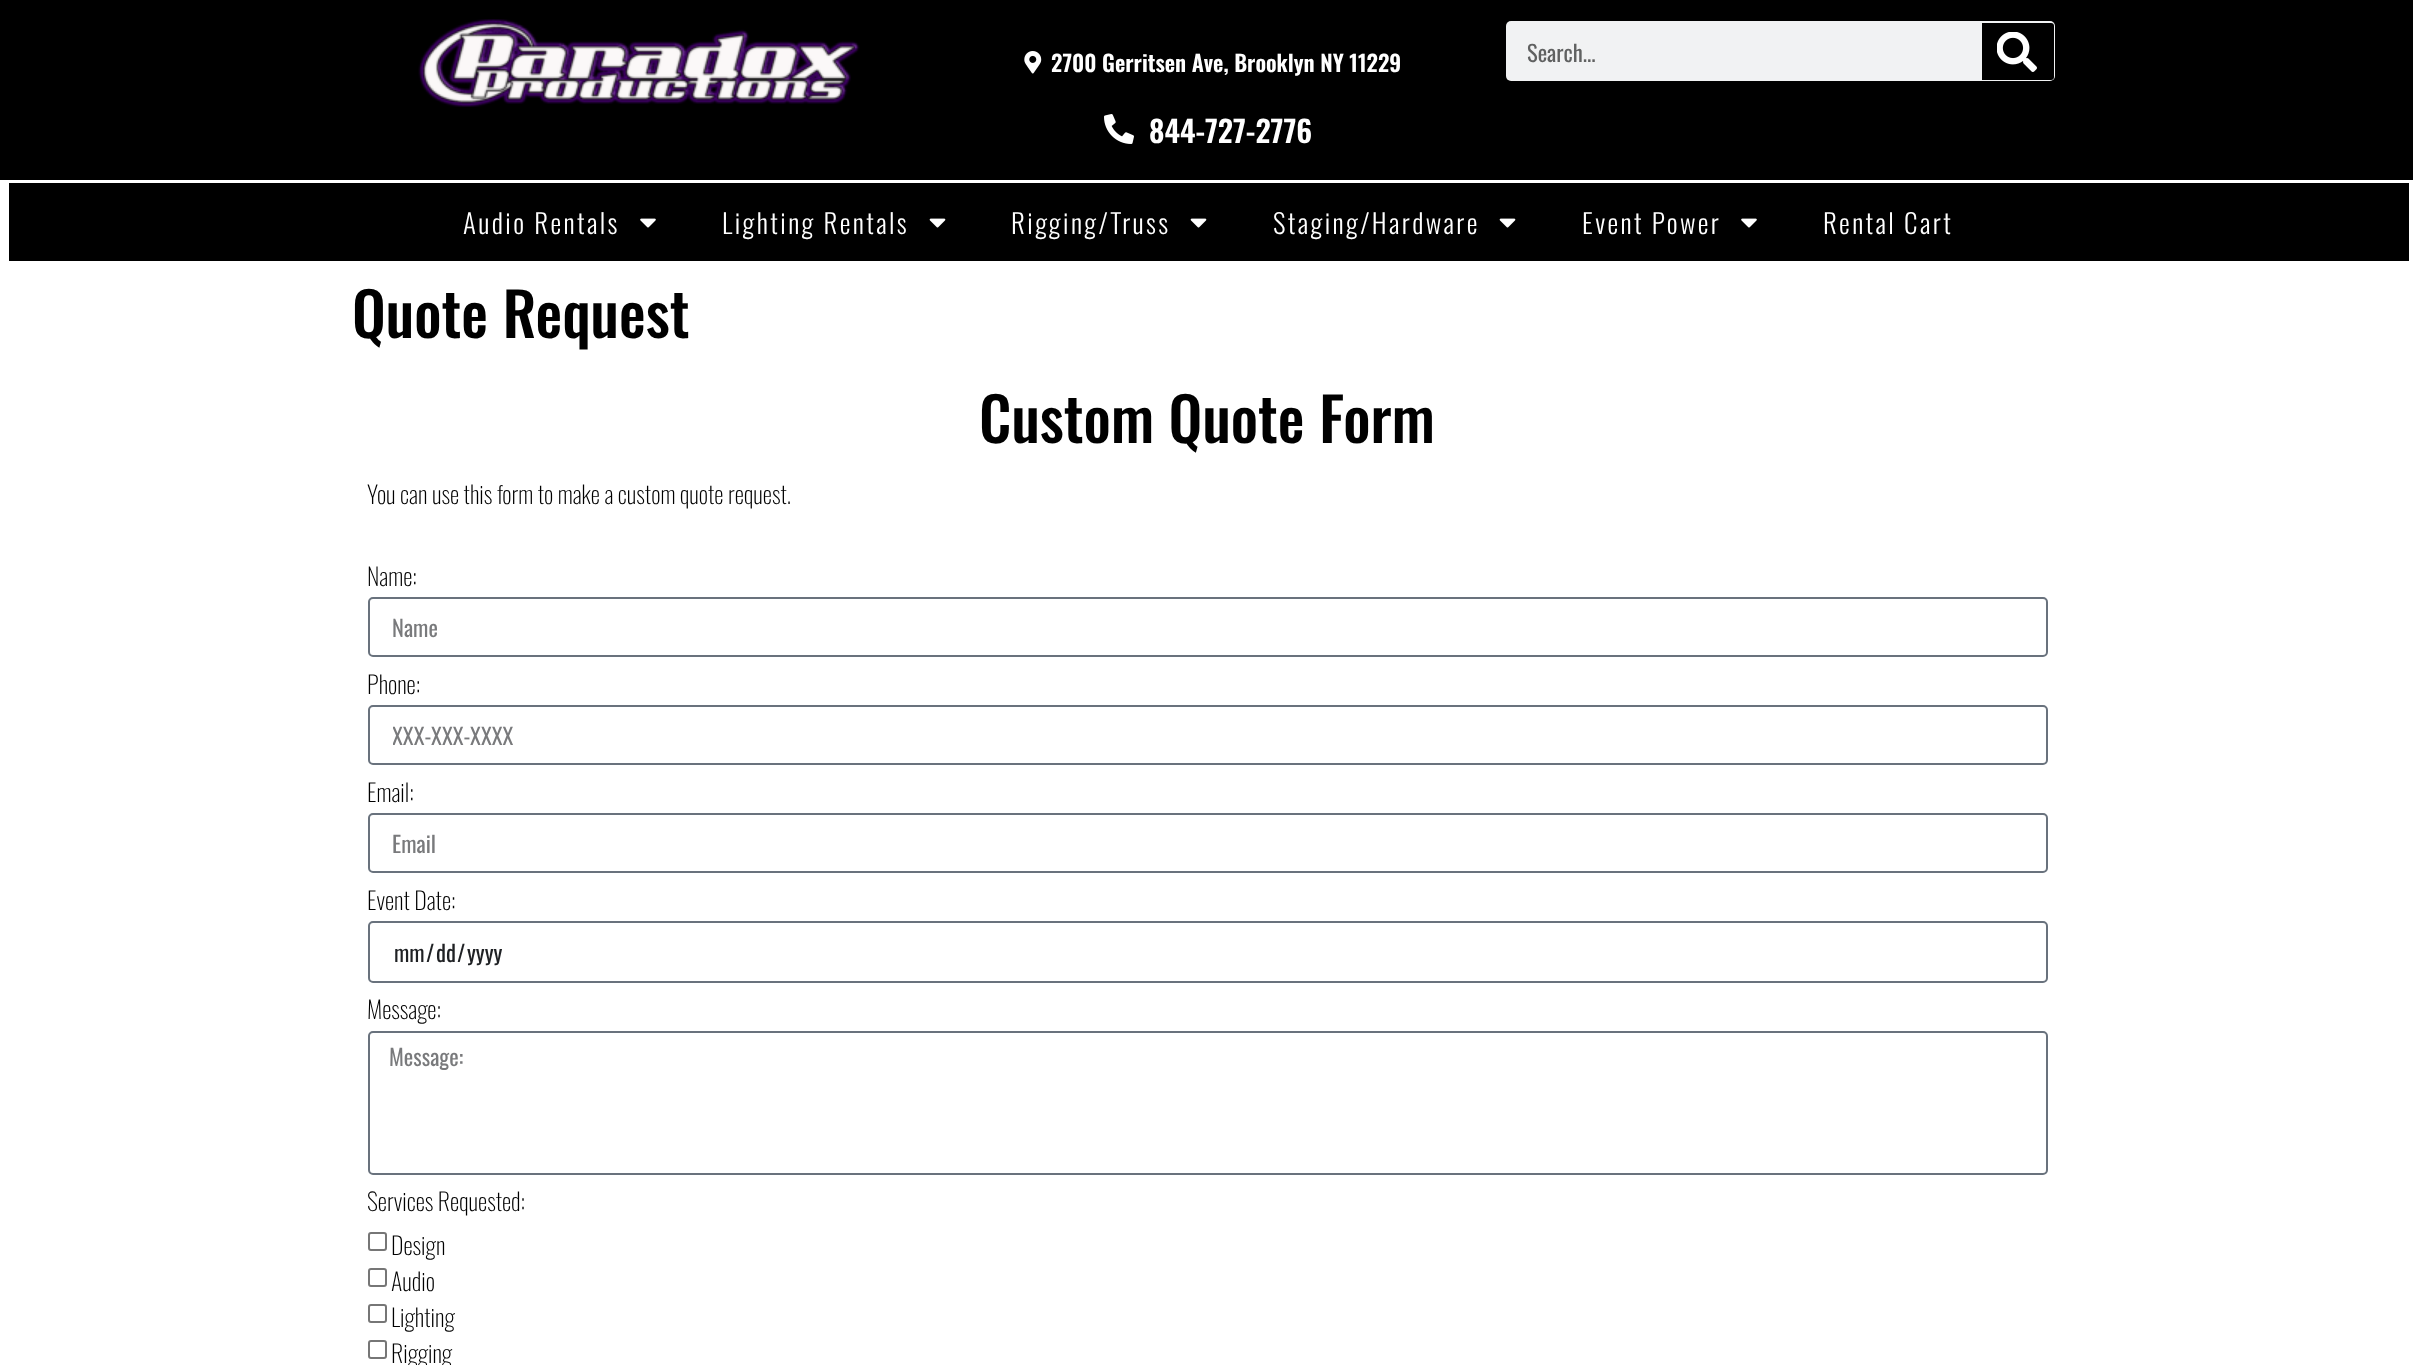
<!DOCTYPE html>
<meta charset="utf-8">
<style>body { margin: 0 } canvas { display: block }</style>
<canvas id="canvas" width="2413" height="1365"></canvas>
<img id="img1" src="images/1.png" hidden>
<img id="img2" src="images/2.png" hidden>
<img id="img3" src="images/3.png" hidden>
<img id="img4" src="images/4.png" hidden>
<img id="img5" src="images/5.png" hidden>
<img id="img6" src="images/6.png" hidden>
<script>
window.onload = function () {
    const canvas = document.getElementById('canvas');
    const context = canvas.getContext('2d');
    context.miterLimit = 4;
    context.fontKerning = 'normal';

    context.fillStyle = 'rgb(255, 255, 255)';
    context.fillRect(0, 0, 2413, 1365);
    context.fillStyle = 'rgb(0, 0, 0)';
    context.fillRect(0, 0, 2413, 180);
    context.drawImage(document.getElementById('img1'), 418, 19, 442, 88);
    context.drawImage(document.getElementById('img2'), 1024, 51, 18, 23);
    context.drawImage(document.getElementById('img3'), 1104, 114, 30, 30);
    context.fillStyle = 'rgb(241, 242, 243)';
    context.beginPath();
    context.roundRect(1506, 21, 549, 60, 5);
    context.fill();
    context.fillStyle = 'rgb(0, 0, 0)';
    context.beginPath();
    context.roundRect(1982, 23, 72, 57, [0, 3, 3, 0]);
    context.fill();
    context.drawImage(document.getElementById('img4'), 1997, 32, 40, 40);
    context.fillRect(9, 183, 2400, 78);
    context.drawImage(document.getElementById('img5'), 640, 218, 16, 10);
    context.drawImage(document.getElementById('img6'), 929, 218, 17, 10);
    context.drawImage(document.getElementById('img6'), 1190, 218, 17, 10);
    context.drawImage(document.getElementById('img6'), 1499, 218, 17, 10);
    context.drawImage(document.getElementById('img5'), 1741, 218, 16, 10);
    context.beginPath();
    context.roundRect(369, 598, 1678, 58, 4);
    context.strokeStyle = 'rgb(105, 114, 125)';
    context.lineWidth = 2;
    context.stroke();
    context.beginPath();
    context.roundRect(369, 706, 1678, 58, 4);
    context.stroke();
    context.beginPath();
    context.roundRect(369, 814, 1678, 58, 4);
    context.stroke();
    context.beginPath();
    context.roundRect(369, 922, 1678, 60, 4);
    context.stroke();
    context.beginPath();
    context.roundRect(369, 1032, 1678, 142, 4);
    context.stroke();
    context.beginPath();
    context.roundRect(369, 1233, 17, 17, 2);
    context.strokeStyle = 'rgb(118, 118, 118)';
    context.stroke();
    context.beginPath();
    context.roundRect(369, 1269, 17, 17, 2);
    context.stroke();
    context.beginPath();
    context.roundRect(369, 1305, 17, 17, 2);
    context.stroke();
    context.beginPath();
    context.roundRect(369, 1341, 17, 17, 2);
    context.stroke();
    context.font = '600 22.5px Oswald';
    context.fillStyle = 'rgb(255, 255, 255)';
    context.fillText('2700 Gerritsen Ave, Brooklyn NY 11229', 1051, 72);
    context.font = '600 30px Oswald';
    context.fillText('844-727-2776', 1149, 143);
    context.font = '22.5px Oswald';
    context.fillStyle = 'rgb(96, 97, 97)';
    context.fillText('Search...', 1527, 62);
    context.letterSpacing = '2.4px';
    context.font = '300 27px Oswald';
    context.fillStyle = 'rgb(255, 255, 255)';
    context.fillText('Audio Rentals', 463, 234);
    context.fillText('Lighting Rentals', 722, 234);
    context.fillText('Rigging/Truss', 1011, 234);
    context.fillText('Staging/Hardware', 1273, 234);
    context.fillText('Event Power', 1582, 234);
    context.fillText('Rental Cart', 1823, 234);
    context.letterSpacing = '0px';
    context.font = '500 60px Oswald';
    context.fillStyle = 'rgb(0, 0, 0)';
    context.fillText('Quote Request', 352, 338);
    context.fillText('Custom Quote Form', 979, 443);
    context.font = '200 24px Oswald';
    context.fillText('You can use this form to make a custom quote request.', 367, 504);
    context.fillText('Name:', 367, 586);
    context.font = '22.5px Oswald';
    context.fillStyle = 'rgb(121, 122, 124)';
    context.fillText('Name', 392, 637);
    context.font = '200 24px Oswald';
    context.fillStyle = 'rgb(0, 0, 0)';
    context.fillText('Phone:', 367, 694);
    context.save();
    context.beginPath();
    context.rect(393, 719, 1629, 33);
    context.clip();
    context.font = '22.5px Oswald';
    context.fillStyle = 'rgb(121, 122, 124)';
    context.fillText('XXX-XXX-XXXX', 392, 745);
    context.restore();
    context.fillText('Email:', 367, 802);
    context.font = '22.5px Oswald';
    context.fillStyle = 'rgb(121, 122, 124)';
    context.fillText('Email', 392, 853);
    context.font = '200 24px Oswald';
    context.fillStyle = 'rgb(0, 0, 0)';
    context.fillText('Event Date:', 367, 910);
    context.font = '22.5px Oswald';
    context.fillStyle = 'rgb(31, 33, 36)';
    context.fillText('mm', 394, 962);
    context.fillText('/', 426, 962);
    context.fillText('dd', 436, 962);
    context.fillText('/', 457, 962);
    context.fillText('yyyy', 467, 962);
    context.font = '200 24px Oswald';
    context.fillStyle = 'rgb(0, 0, 0)';
    context.fillText('Message:', 367, 1019);
    context.font = '22.5px Oswald';
    context.fillStyle = 'rgb(121, 122, 124)';
    context.fillText('Message:', 389, 1066);
    context.font = '200 24px Oswald';
    context.fillStyle = 'rgb(0, 0, 0)';
    context.fillText('Services Requested:', 367, 1211);
    context.fillText('Design', 391, 1255);
    context.fillText('Audio', 391, 1291);
    context.fillText('Lighting', 391, 1327);
    context.fillText('Rigging', 391, 1363);
};
</script>
